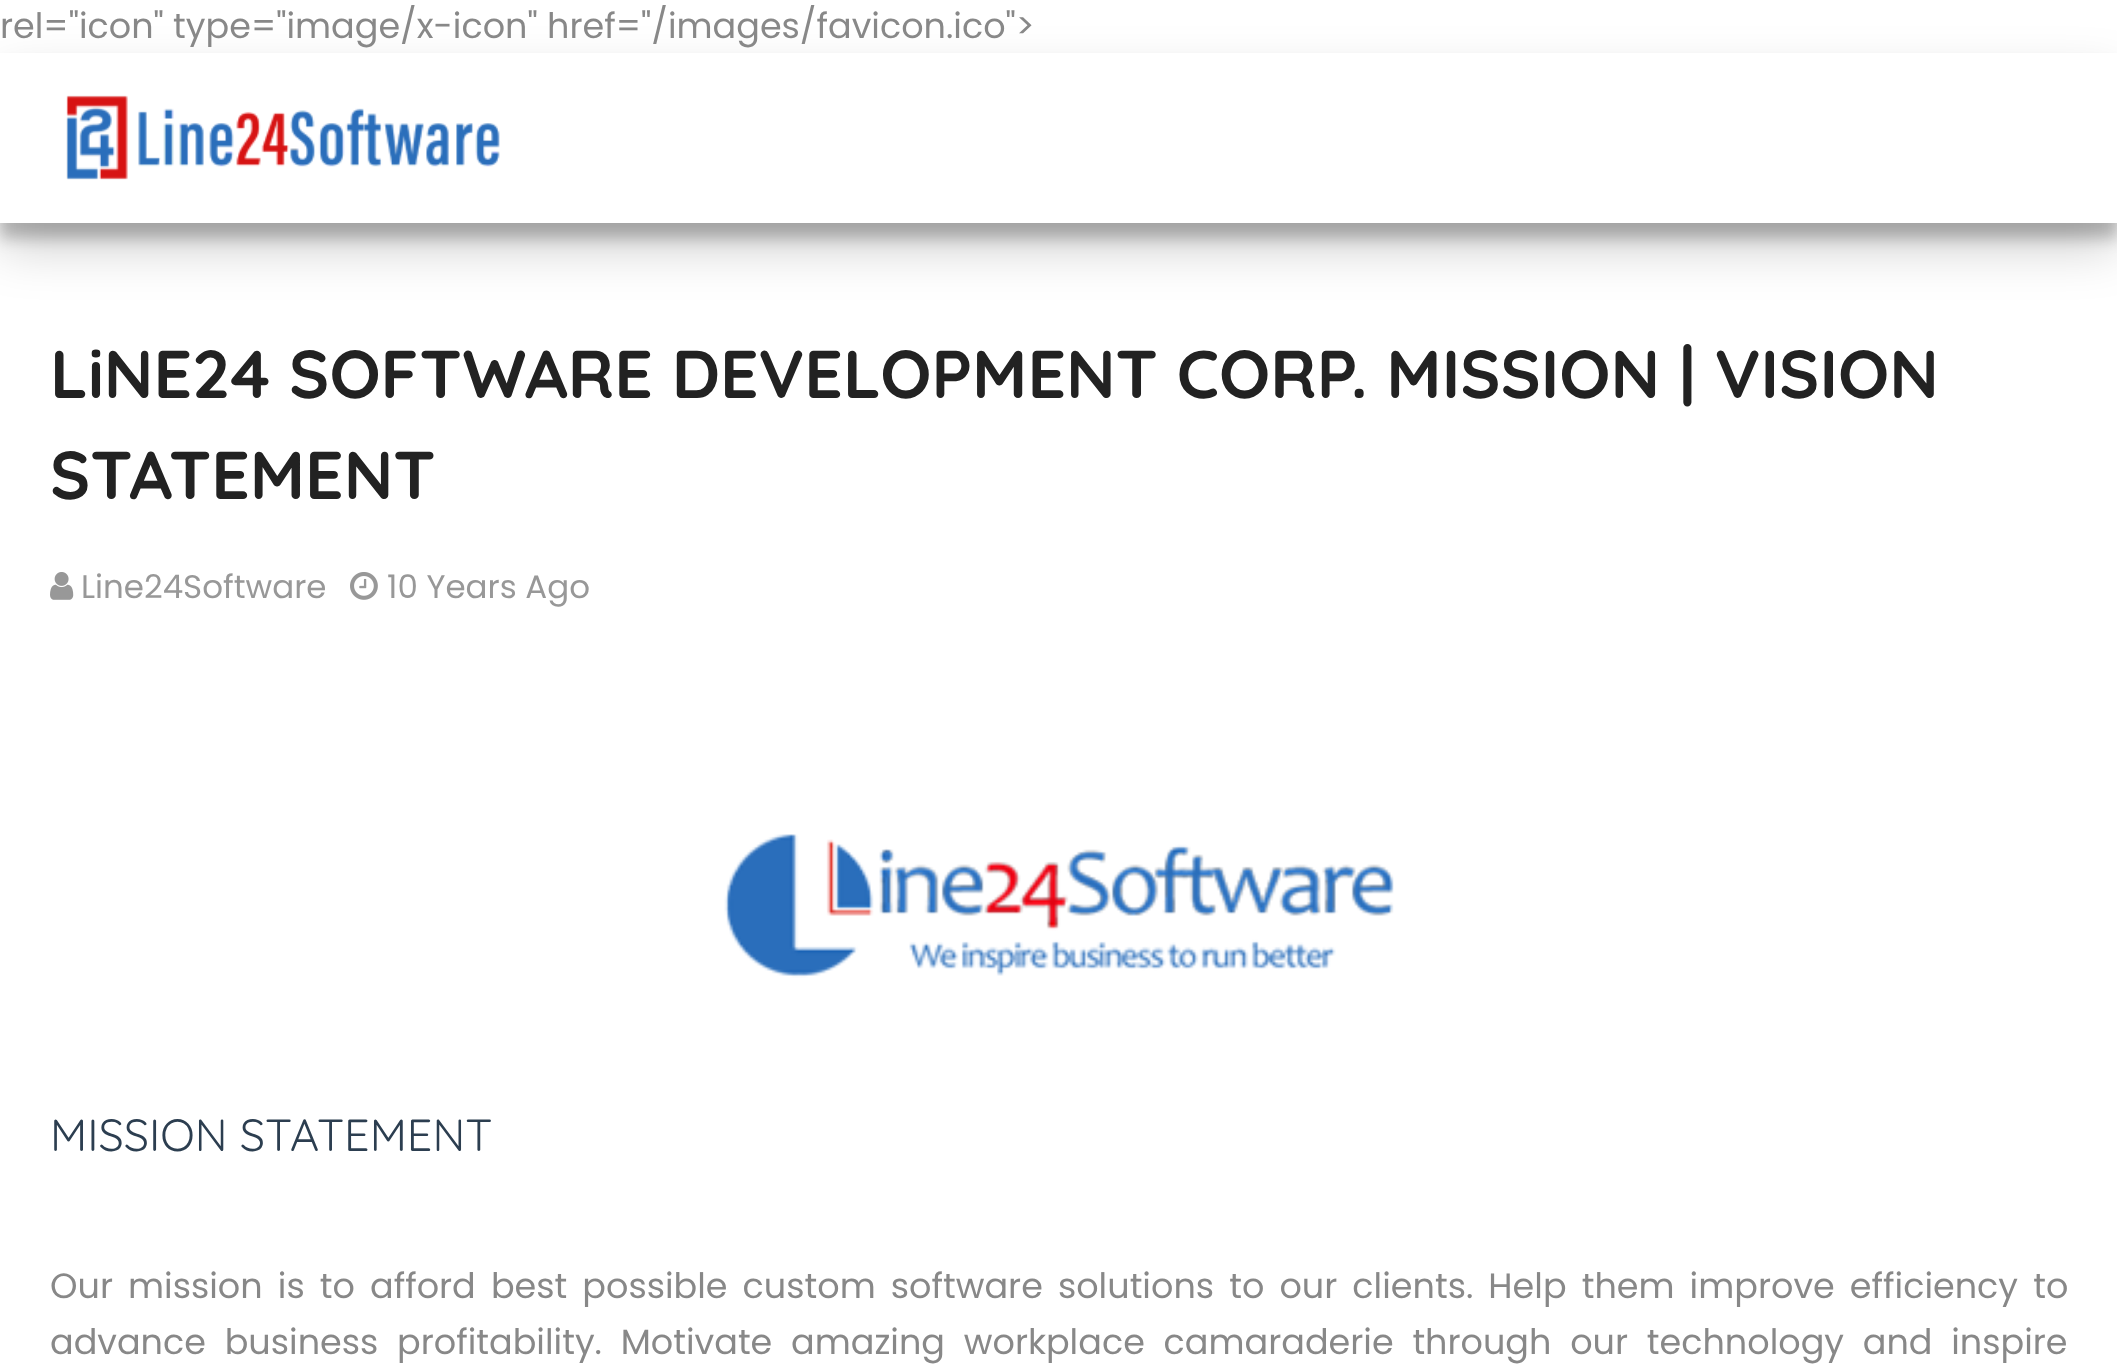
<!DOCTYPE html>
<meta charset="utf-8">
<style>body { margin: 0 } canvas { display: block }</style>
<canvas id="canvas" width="2117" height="1371"></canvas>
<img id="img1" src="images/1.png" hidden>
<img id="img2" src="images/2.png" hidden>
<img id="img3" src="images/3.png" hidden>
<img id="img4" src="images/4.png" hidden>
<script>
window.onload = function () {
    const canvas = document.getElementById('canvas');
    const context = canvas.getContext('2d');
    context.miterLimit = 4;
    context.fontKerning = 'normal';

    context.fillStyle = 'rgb(255, 255, 255)';
    context.fillRect(0, 0, 2117, 1371);
    context.fillStyle = 'rgba(0, 0, 0, 0.23)';
    context.filter = 'blur(7.5px)';
    context.beginPath();
    context.rect(0, 68, 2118, 170);
    context.fill();
    context.filter = 'none';
    context.fillStyle = 'rgba(0, 0, 0, 0.19)';
    context.filter = 'blur(25px)';
    context.beginPath();
    context.rect(0, 78, 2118, 170);
    context.fill();
    context.filter = 'none';
    context.fillStyle = 'rgb(255, 255, 255)';
    context.fillRect(0, 53, 2117, 170);
    context.drawImage(document.getElementById('img1'), 66, 95, 434, 85);
    context.drawImage(document.getElementById('img2'), 50, 572, 24, 28);
    context.drawImage(document.getElementById('img3'), 350, 572, 28, 28);
    context.drawImage(document.getElementById('img4'), 724, 834, 670, 144);
    context.font = '35px Poppins';
    context.fillStyle = 'rgb(136, 136, 136)';
    context.fillText('rel="icon" type="image/x-icon" href="/images/favicon.ico">', 0, 38);
    context.font = 'bold 67.5px Quicksand';
    context.fillStyle = 'rgb(34, 34, 34)';
    context.fillText('LiNE24 SOFTWARE DEVELOPMENT CORP. MISSION | VISION', 50, 398);
    context.fillText('STATEMENT', 50, 499);
    context.font = '32.5px Poppins';
    context.fillStyle = 'rgb(152, 152, 152)';
    context.fillText('Line24Software', 81, 598);
    context.fillText('10 Years Ago', 387, 598);
    context.font = '45px Quicksand';
    context.fillStyle = 'rgb(44, 62, 80)';
    context.fillText('MISSION STATEMENT', 50, 1151);
    context.wordSpacing = '5.75px';
    context.font = '35px Poppins';
    context.fillStyle = 'rgb(136, 136, 136)';
    context.fillText('Our mission is to afford best possible custom software solutions to our clients. Help them improve efficiency to', 50, 1298);
    context.wordSpacing = '9.4px';
    context.fillText('advance business profitability. Motivate amazing workplace camaraderie through our technology and inspire', 50, 1354);
};
</script>
